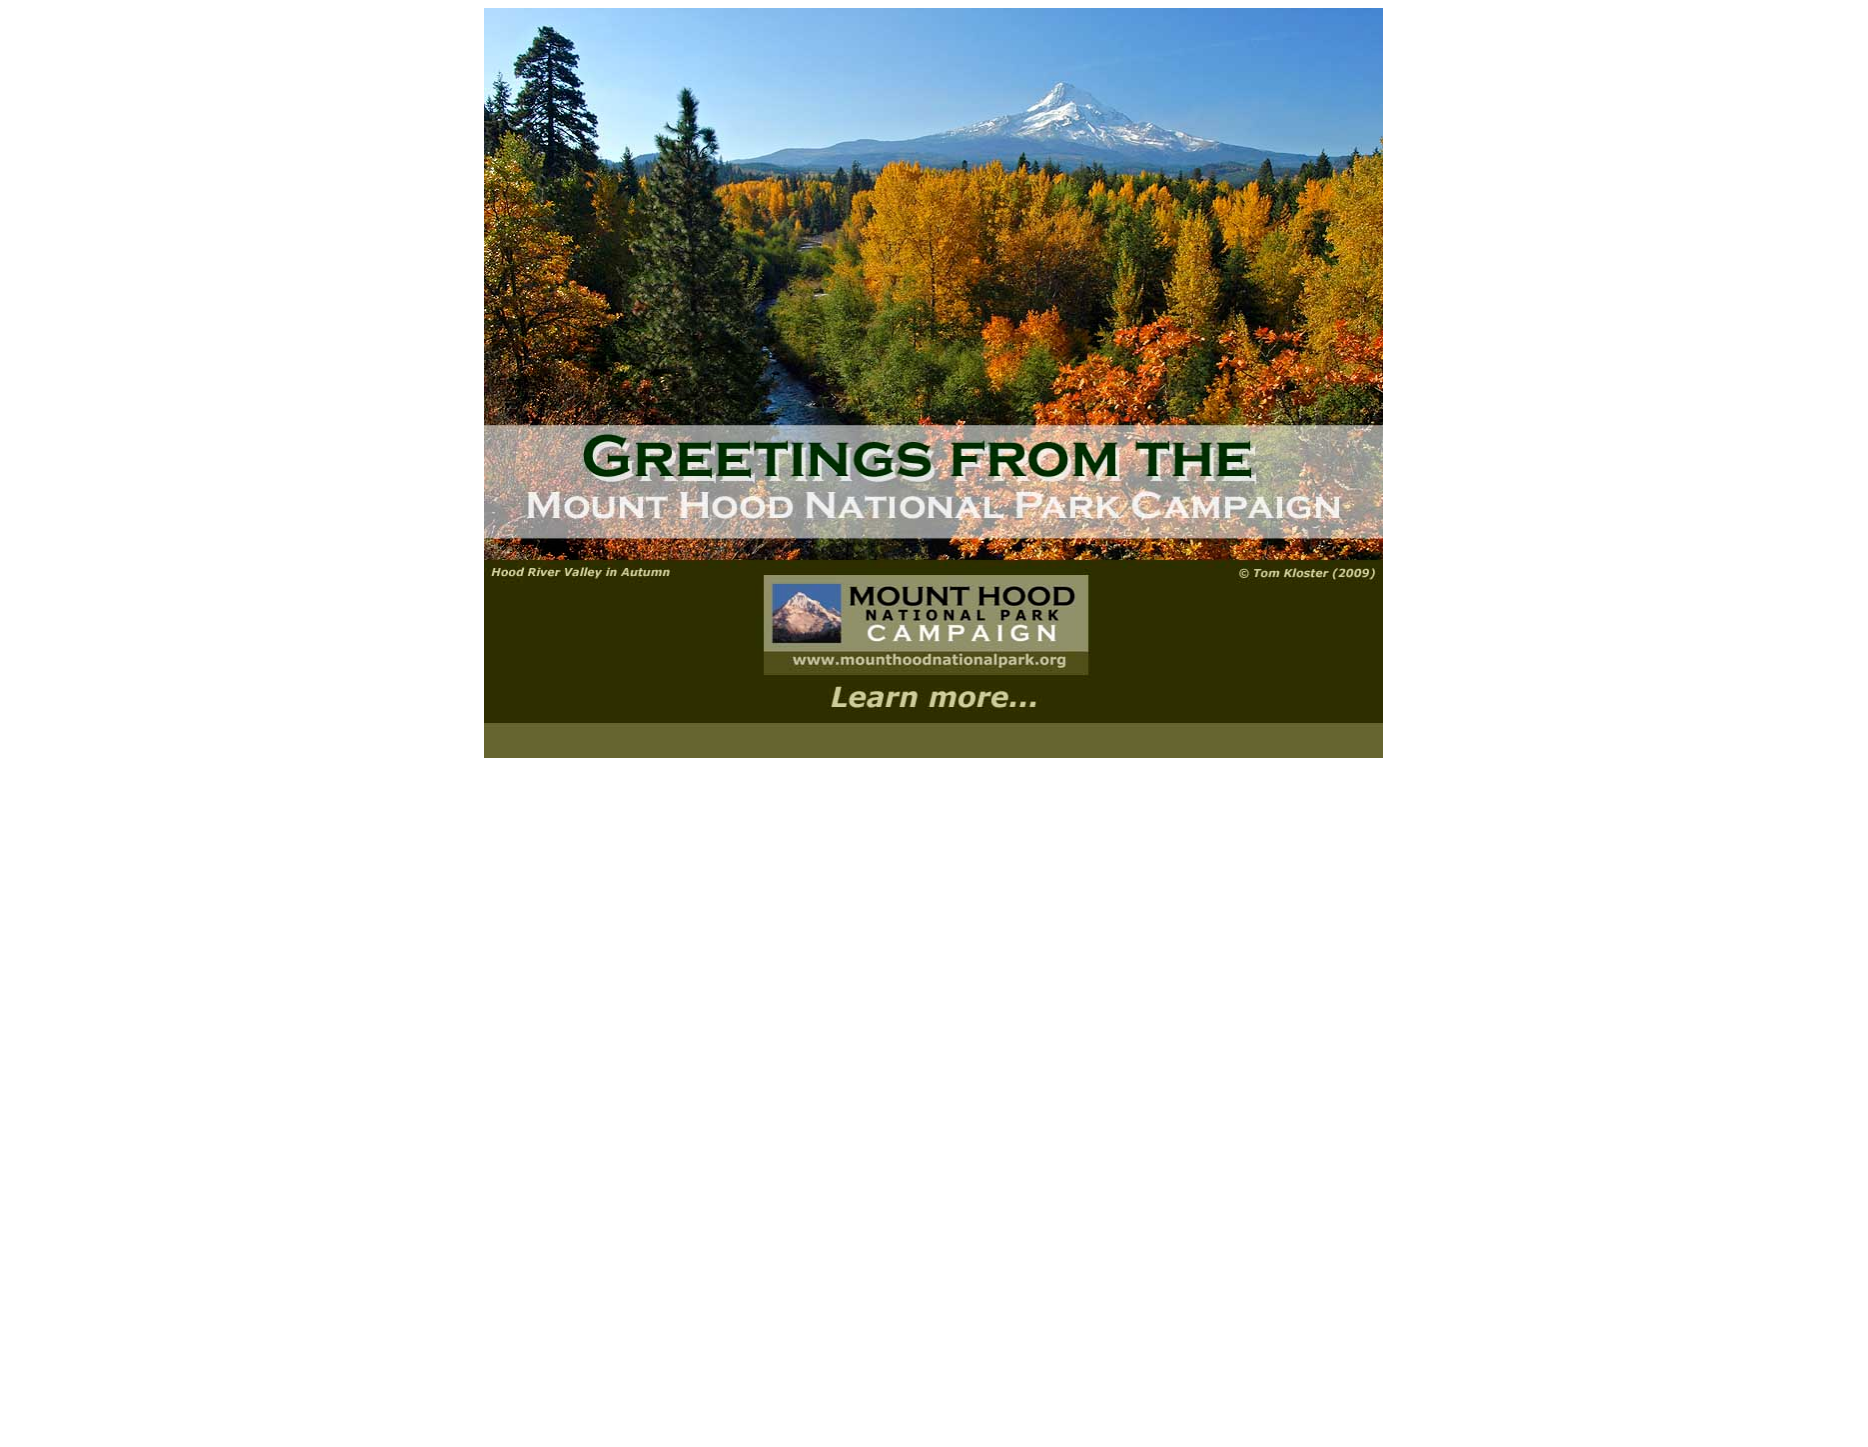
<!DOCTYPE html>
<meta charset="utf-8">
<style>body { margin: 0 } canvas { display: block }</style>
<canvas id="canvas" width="1868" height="1447"></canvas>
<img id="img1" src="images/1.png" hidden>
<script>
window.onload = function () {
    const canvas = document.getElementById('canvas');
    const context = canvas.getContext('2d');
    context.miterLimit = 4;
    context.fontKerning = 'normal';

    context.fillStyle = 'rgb(255, 255, 255)';
    context.fillRect(0, 0, 1868, 1447);
    context.drawImage(document.getElementById('img1'), 484, 8, 899, 750);
};
</script>
